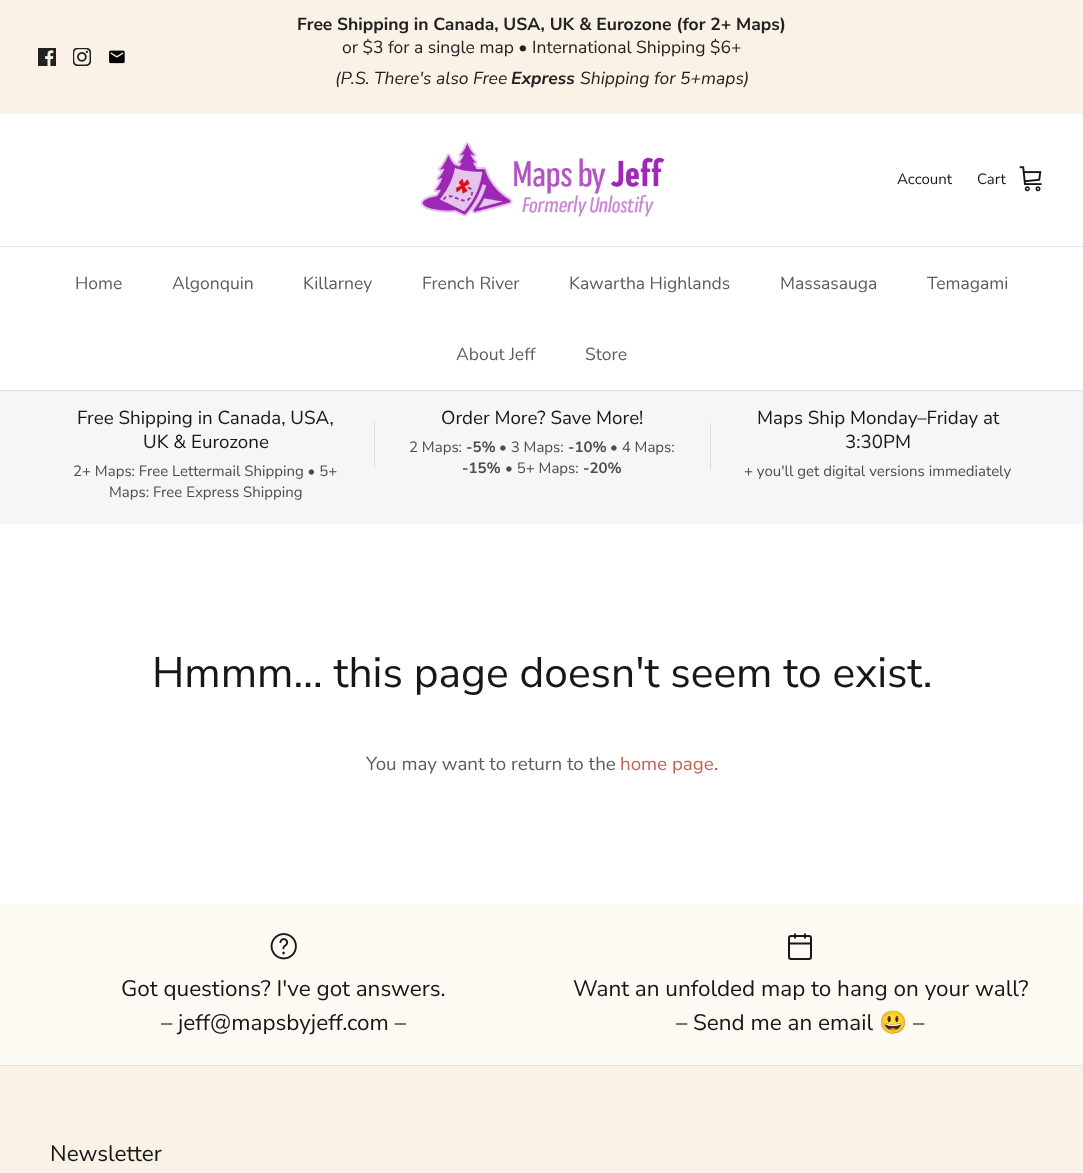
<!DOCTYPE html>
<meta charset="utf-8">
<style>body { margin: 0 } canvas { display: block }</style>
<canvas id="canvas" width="1083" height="1173"></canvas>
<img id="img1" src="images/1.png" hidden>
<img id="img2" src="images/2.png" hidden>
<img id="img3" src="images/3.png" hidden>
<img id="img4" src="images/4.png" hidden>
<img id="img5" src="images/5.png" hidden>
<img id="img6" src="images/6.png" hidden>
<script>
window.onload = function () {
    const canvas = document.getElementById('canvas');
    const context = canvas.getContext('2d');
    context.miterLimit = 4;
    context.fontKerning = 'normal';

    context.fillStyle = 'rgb(255, 255, 255)';
    context.fillRect(0, 0, 1083, 1173);
    context.fillStyle = 'rgb(250, 242, 230)';
    context.fillRect(0, 0, 1083, 114);
    context.drawImage(document.getElementById('img1'), 38, 48, 18, 18);
    context.drawImage(document.getElementById('img2'), 73, 48, 18, 18);
    context.drawImage(document.getElementById('img3'), 109, 50, 16, 14);
    context.fillStyle = 'rgb(223, 227, 232)';
    context.fillRect(0, 246, 1083, 1);
    context.drawImage(document.getElementById('img4'), 420, 142, 245, 75);
    context.drawImage(document.getElementById('img5'), 1019, 166, 23, 26);
    context.fillRect(0, 390, 1083, 1);
    context.fillStyle = 'rgb(244, 246, 248)';
    context.fillRect(0, 391, 1083, 133);
    context.fillStyle = 'rgb(219, 221, 222)';
    context.fillRect(374, 421, 1, 47);
    context.fillRect(710, 423, 1, 47);
    context.fillStyle = 'rgb(250, 242, 230)';
    context.fillRect(0, 1066, 1083, 107);
    context.fillStyle = 'rgb(252, 250, 243)';
    context.fillRect(0, 904, 1083, 161);
    context.drawImage(document.getElementById('img6'), 270, 933, 27, 27);
    context.beginPath();
    context.roundRect(789, 936, 22, 23, 2);
    context.strokeStyle = 'rgb(23, 23, 23)';
    context.lineWidth = 2;
    context.stroke();
    context.beginPath();
    context.moveTo(805, 933.5);
    context.lineTo(805, 938.5);
    context.moveTo(795, 933.5);
    context.lineTo(795, 938.5);
    context.moveTo(788.5, 943.5);
    context.lineTo(811.5, 943.5);
    context.lineWidth = 1.9;
    context.stroke();
    context.fillStyle = 'rgb(239, 223, 199)';
    context.fillRect(0, 1065, 1083, 1);
    context.font = 'bold 17.5px Nunito Sans';
    context.fillStyle = 'rgb(33, 33, 33)';
    context.fillText('Free Shipping in Canada, USA, UK & Eurozone (for 2+ Maps)', 297, 30);
    context.font = '17.5px Nunito Sans';
    context.fillText('or $3 for a single map • International Shipping $6+', 342, 53);
    context.font = 'italic 17.5px Nunito Sans';
    context.fillText('(P.S. There\'s also Free', 335, 84);
    context.font = 'italic bold 17.5px Nunito Sans';
    context.fillText('Express', 511, 84);
    context.font = 'italic 17.5px Nunito Sans';
    context.fillText('Shipping for 5+maps)', 580, 84);
    context.font = '15px Nunito Sans';
    context.fillStyle = 'rgb(23, 23, 23)';
    context.fillText('Account', 897, 184);
    context.fillText('Cart', 977, 184);
    context.font = '17.5px Nunito';
    context.fillStyle = 'rgb(92, 92, 92)';
    context.fillText('Home', 75, 289);
    context.fillText('Algonquin', 172, 289);
    context.fillText('Killarney', 303, 289);
    context.fillText('French River', 422, 289);
    context.fillText('Kawartha Highlands', 569, 289);
    context.fillText('Massasauga', 780, 289);
    context.fillText('Temagami', 927, 289);
    context.fillText('About Jeff', 456, 360);
    context.fillText('Store', 585, 360);
    context.font = '18.75px Nunito Sans';
    context.fillStyle = 'rgb(23, 23, 23)';
    context.fillText('Free Shipping in Canada, USA,', 77, 424);
    context.fillText('UK & Eurozone', 143, 448);
    context.font = '15px Nunito Sans';
    context.fillStyle = 'rgb(76, 76, 75)';
    context.fillText('2+ Maps: Free Lettermail Shipping • 5+', 73, 476);
    context.fillText('Maps: Free Express Shipping', 109, 497);
    context.font = '18.75px Nunito Sans';
    context.fillStyle = 'rgb(23, 23, 23)';
    context.fillText('Order More? Save More!', 441, 424);
    context.font = '15px Nunito Sans';
    context.fillStyle = 'rgb(76, 76, 75)';
    context.fillText('2 Maps:', 409, 452);
    context.font = 'bold 15px Nunito Sans';
    context.fillText('-5%', 466, 452);
    context.font = '15px Nunito Sans';
    context.fillText('• 3 Maps:', 499, 452);
    context.font = 'bold 15px Nunito Sans';
    context.fillText('-10%', 568, 452);
    context.font = '15px Nunito Sans';
    context.fillText('• 4 Maps:', 610, 452);
    context.font = 'bold 15px Nunito Sans';
    context.fillText('-15%', 462, 473);
    context.font = '15px Nunito Sans';
    context.fillText('• 5+ Maps:', 505, 473);
    context.font = 'bold 15px Nunito Sans';
    context.fillText('-20%', 583, 473);
    context.font = '18.75px Nunito Sans';
    context.fillStyle = 'rgb(23, 23, 23)';
    context.fillText('Maps Ship Monday–Friday at', 757, 424);
    context.fillText('3:30PM', 845, 448);
    context.font = '15px Nunito Sans';
    context.fillStyle = 'rgb(76, 76, 75)';
    context.fillText('+ you\'ll get digital versions immediately', 744, 476);
    context.font = '42.5px Nunito Sans';
    context.fillStyle = 'rgb(23, 23, 23)';
    context.fillText('Hmmm… this page doesn\'t seem to exist.', 152, 687);
    context.font = '18.75px Nunito Sans';
    context.fillStyle = 'rgb(92, 92, 92)';
    context.fillText('You may want to return to the', 366, 770);
    context.fillStyle = 'rgb(193, 100, 82)';
    context.fillText('home page', 620, 770);
    context.fillStyle = 'rgb(92, 92, 92)';
    context.fillText('.', 714, 770);
    context.font = '22.5px Nunito Sans';
    context.fillStyle = 'rgb(23, 23, 23)';
    context.fillText('Got questions? I\'ve got answers.', 121, 996);
    context.fillText('– jeff@mapsbyjeff.com –', 161, 1030);
    context.fillText('Want an unfolded map to hang on your wall?', 573, 996);
    context.fillText('– Send me an email', 676, 1030);
    context.font = '22.5px Noto Color Emoji';
    context.fillText('😃', 879, 1030);
    context.font = '22.5px Nunito Sans';
    context.fillText('–', 913, 1030);
    context.fillText('Newsletter', 50, 1161);
};
</script>
